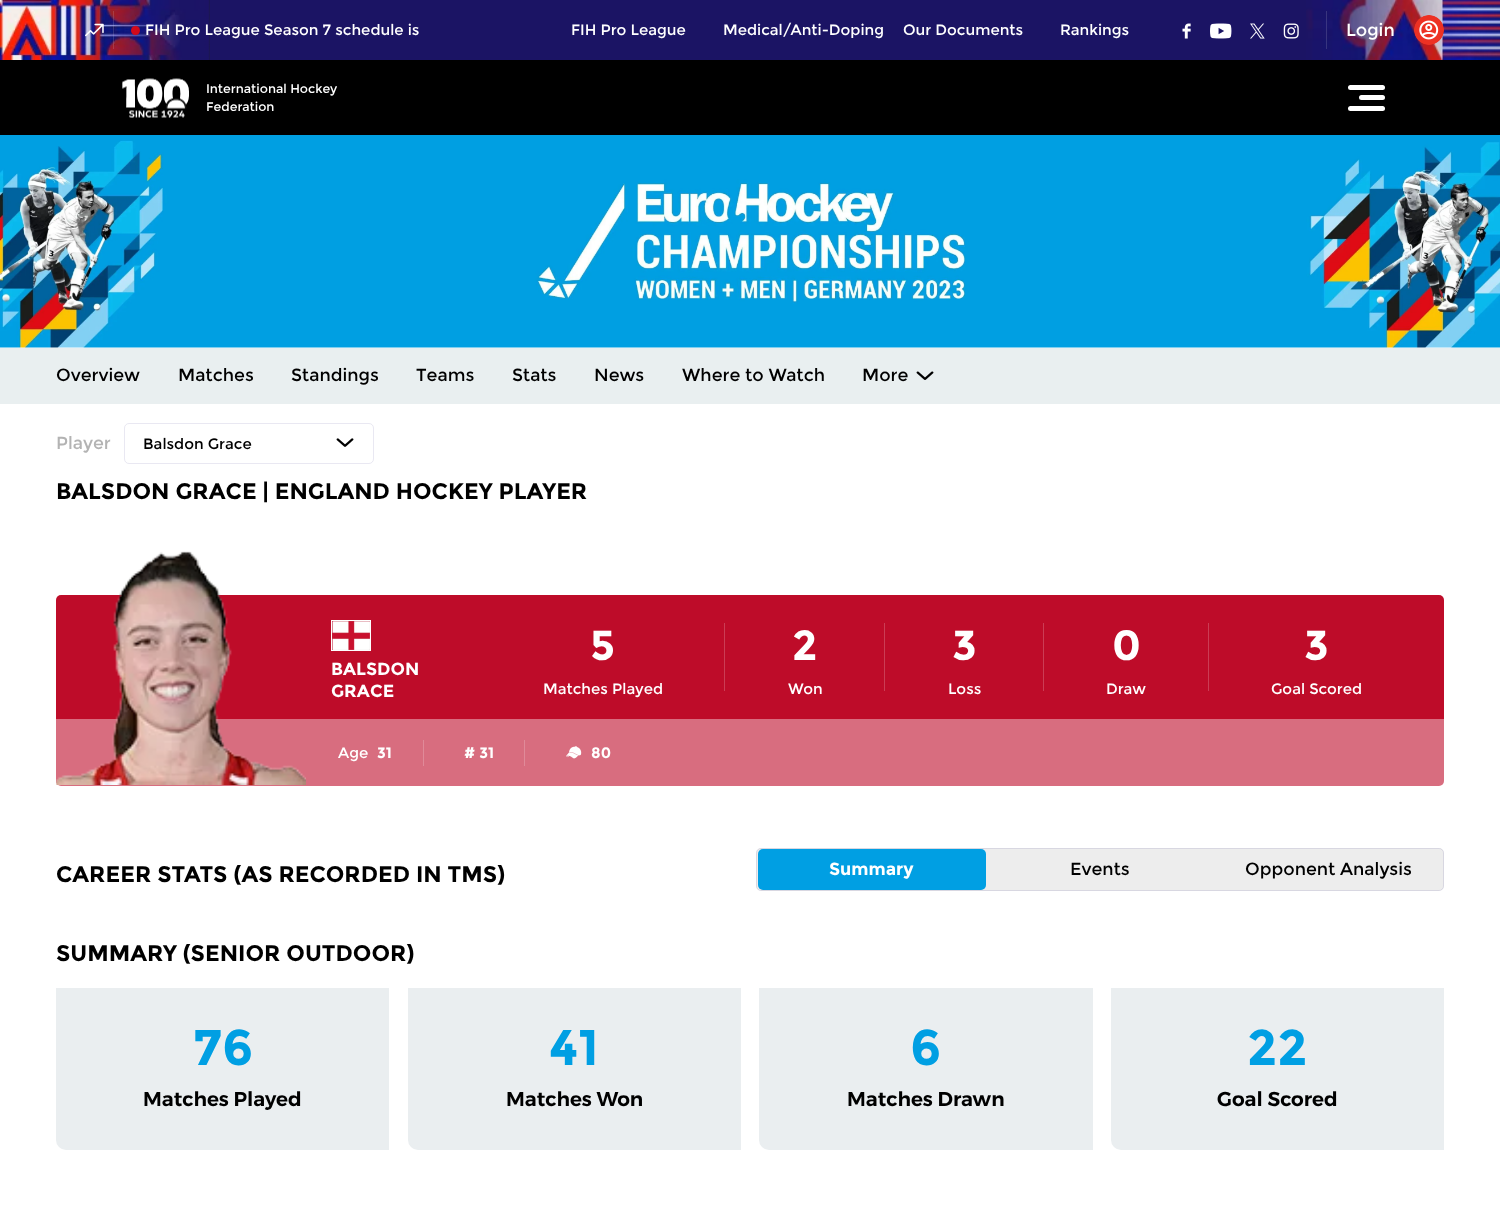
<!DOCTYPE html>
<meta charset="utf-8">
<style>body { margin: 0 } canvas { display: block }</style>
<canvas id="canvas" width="1500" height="1209"></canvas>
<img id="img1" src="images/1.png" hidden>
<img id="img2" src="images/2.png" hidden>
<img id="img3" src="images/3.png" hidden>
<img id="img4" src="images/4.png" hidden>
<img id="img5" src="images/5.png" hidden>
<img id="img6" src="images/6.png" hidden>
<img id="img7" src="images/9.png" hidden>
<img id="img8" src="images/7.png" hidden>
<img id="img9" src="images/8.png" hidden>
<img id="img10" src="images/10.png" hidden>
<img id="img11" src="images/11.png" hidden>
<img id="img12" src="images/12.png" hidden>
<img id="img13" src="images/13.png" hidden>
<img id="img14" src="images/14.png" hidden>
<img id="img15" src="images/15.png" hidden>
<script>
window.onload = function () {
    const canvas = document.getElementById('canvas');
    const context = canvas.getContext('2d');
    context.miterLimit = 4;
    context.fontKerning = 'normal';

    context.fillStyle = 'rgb(255, 255, 255)';
    context.fillRect(0, 0, 1500, 1209);
    context.fillStyle = 'rgb(27, 20, 100)';
    context.fillRect(209, 0, 1097, 60);
    context.drawImage(document.getElementById('img1'), 0, 0, 210, 60);
    context.fillStyle = 'rgba(244, 244, 244, 0.15)';
    context.fillRect(113, 11, 1, 38);
    context.drawImage(document.getElementById('img2'), 85, 23, 19, 14);
    context.fillStyle = 'rgb(210, 9, 27)';
    context.beginPath();
    context.arc(135.5, 30.5, 4.5, 0, 2 * Math.PI);
    context.fill();
    context.drawImage(document.getElementById('img3'), 1182, 23, 9, 16);
    context.drawImage(document.getElementById('img4'), 1210, 23, 22, 16);
    context.drawImage(document.getElementById('img5'), 1250, 23, 15, 16);
    context.drawImage(document.getElementById('img6'), 1283, 23, 16, 16);
    context.drawImage(document.getElementById('img7'), 1306, 0, 194, 60);
    context.fillStyle = 'rgba(244, 244, 244, 0.15)';
    context.fillRect(1326, 11, 1, 38);
    context.drawImage(document.getElementById('img8'), 1414, 15, 30, 30);
    context.fillStyle = 'rgb(0, 0, 0)';
    context.fillRect(0, 60, 1500, 75);
    context.drawImage(document.getElementById('img9'), 122, 78, 67, 40);
    context.fillStyle = 'rgb(255, 255, 255)';
    context.beginPath();
    context.roundRect(1348, 85, 37, 5, 2.5);
    context.fill();
    context.beginPath();
    context.roundRect(1359, 95, 26, 5, 2.5);
    context.fill();
    context.beginPath();
    context.roundRect(1348, 106, 37, 5, 2.5);
    context.fill();
    context.drawImage(document.getElementById('img10'), 0, 135, 1500, 213);
    context.fillStyle = 'rgb(233, 239, 240)';
    context.fillRect(0, 348, 1500, 56);
    context.drawImage(document.getElementById('img11'), 916, 371, 18, 9);
    context.beginPath();
    context.roundRect(124.5, 423.5, 249, 40, 4.5);
    context.strokeStyle = 'rgb(233, 232, 242)';
    context.stroke();
    context.drawImage(document.getElementById('img12'), 336, 438, 18, 9);
    context.fillStyle = 'rgb(190, 12, 41)';
    context.beginPath();
    context.roundRect(56, 595, 1388, 124, [5, 5, 0, 0]);
    context.fill();
    context.fillStyle = 'rgb(203, 61, 84)';
    context.fillRect(724, 623, 1, 68);
    context.fillRect(884, 623, 1, 68);
    context.fillRect(1043, 623, 1, 68);
    context.fillRect(1208, 623, 1, 68);
    context.fillStyle = 'rgb(216, 109, 127)';
    context.beginPath();
    context.roundRect(56, 719, 1388, 67, [0, 0, 5, 5]);
    context.fill();
    context.fillStyle = 'rgb(224, 138, 153)';
    context.fillRect(423, 740, 1, 26);
    context.fillRect(524, 740, 1, 26);
    context.drawImage(document.getElementById('img13'), 566, 746, 16, 13);
    context.drawImage(document.getElementById('img14'), 56, 551, 250, 234);
    context.strokeStyle = 'rgb(255, 255, 255)';
    context.strokeRect(331.5, 620.5, 39, 30);
    context.drawImage(document.getElementById('img15'), 332, 621, 38, 29);
    context.fillStyle = 'rgb(237, 237, 237)';
    context.beginPath();
    context.roundRect(756, 848, 688, 43, 5);
    context.fill();
    context.beginPath();
    context.roundRect(756.5, 848.5, 687, 42, 4.5);
    context.strokeStyle = 'rgba(35, 27, 125, 0.1)';
    context.stroke();
    context.fillStyle = 'rgb(0, 159, 227)';
    context.beginPath();
    context.roundRect(758, 849, 228, 41, 5);
    context.fill();
    context.fillStyle = 'rgb(234, 238, 240)';
    context.beginPath();
    context.roundRect(56, 988, 333, 162, [0, 0, 0, 10]);
    context.fill();
    context.beginPath();
    context.roundRect(408, 988, 333, 162, [0, 0, 0, 10]);
    context.fill();
    context.beginPath();
    context.roundRect(759, 988, 334, 162, [0, 0, 0, 10]);
    context.fill();
    context.beginPath();
    context.roundRect(1111, 988, 333, 162, [0, 0, 0, 10]);
    context.fill();
    context.font = '15px Montserrat';
    context.fillStyle = 'rgb(255, 255, 255)';
    context.fillText('FIH Pro League Season 7 schedule is', 145, 35);
    context.fillText('FIH Pro League', 571, 35);
    context.fillText('Medical/Anti-Doping', 723, 35);
    context.fillText('Our Documents', 903, 35);
    context.fillText('Rankings', 1060, 35);
    context.font = '17.5px Montserrat';
    context.fillText('Login', 1346, 36);
    context.font = '12.5px Montserrat';
    context.fillText('International Hockey', 206, 93);
    context.fillText('Federation', 206, 111);
    context.font = '17.5px Montserrat';
    context.fillStyle = 'rgb(0, 0, 0)';
    context.fillText('Overview', 56, 381);
    context.fillText('Matches', 178, 381);
    context.fillText('Standings', 291, 381);
    context.fillText('Teams', 416, 381);
    context.fillText('Stats', 512, 381);
    context.fillText('News', 594, 381);
    context.fillText('Where to Watch', 682, 381);
    context.fillText('More', 862, 381);
    context.fillStyle = 'rgb(179, 179, 179)';
    context.fillText('Player', 56, 449);
    context.font = '15px Montserrat';
    context.fillStyle = 'rgb(0, 0, 0)';
    context.fillText('Balsdon Grace', 143, 449);
    context.font = 'bold 22.5px Montserrat';
    context.fillText('BALSDON GRACE | ENGLAND HOCKEY PLAYER', 56, 499);
    context.font = 'bold 42px Montserrat';
    context.fillStyle = 'rgb(255, 255, 255)';
    context.fillText('5', 590, 660);
    context.font = '15px Montserrat';
    context.fillText('Matches Played', 543, 694);
    context.font = 'bold 42px Montserrat';
    context.fillText('2', 792, 660);
    context.font = '15px Montserrat';
    context.fillText('Won', 788, 694);
    context.font = 'bold 42px Montserrat';
    context.fillText('3', 952, 660);
    context.font = '15px Montserrat';
    context.fillText('Loss', 948, 694);
    context.font = 'bold 42px Montserrat';
    context.fillText('0', 1112, 660);
    context.font = '15px Montserrat';
    context.fillText('Draw', 1106, 694);
    context.font = 'bold 42px Montserrat';
    context.fillText('3', 1304, 660);
    context.font = '15px Montserrat';
    context.fillText('Goal Scored', 1271, 694);
    context.fillText('Age', 338, 758);
    context.font = 'bold 15px Montserrat';
    context.fillText('31', 377, 758);
    context.fillText('# 31', 464, 758);
    context.fillText('80', 591, 758);
    context.font = 'bold 17.5px Montserrat';
    context.fillText('BALSDON', 331, 675);
    context.fillText('GRACE', 331, 697);
    context.font = 'bold 22.5px Montserrat';
    context.fillStyle = 'rgb(0, 0, 0)';
    context.fillText('CAREER STATS (AS RECORDED IN TMS)', 56, 882);
    context.font = 'bold 17.5px Montserrat';
    context.fillStyle = 'rgb(255, 255, 255)';
    context.fillText('Summary', 829, 875);
    context.font = '17.5px Montserrat';
    context.fillStyle = 'rgb(0, 0, 0)';
    context.fillText('Events', 1070, 875);
    context.fillText('Opponent Analysis', 1245, 875);
    context.font = 'bold 22.5px Montserrat';
    context.fillText('SUMMARY (SENIOR OUTDOOR)', 56, 961);
    context.font = 'bold 50px Montserrat';
    context.fillStyle = 'rgb(0, 159, 227)';
    context.fillText('76', 193, 1065);
    context.font = '600 20px Montserrat';
    context.fillStyle = 'rgb(0, 0, 0)';
    context.fillText('Matches Played', 143, 1106);
    context.font = 'bold 50px Montserrat';
    context.fillStyle = 'rgb(0, 159, 227)';
    context.fillText('41', 549, 1065);
    context.font = '600 20px Montserrat';
    context.fillStyle = 'rgb(0, 0, 0)';
    context.fillText('Matches Won', 506, 1106);
    context.font = 'bold 50px Montserrat';
    context.fillStyle = 'rgb(0, 159, 227)';
    context.fillText('6', 910, 1065);
    context.font = '600 20px Montserrat';
    context.fillStyle = 'rgb(0, 0, 0)';
    context.fillText('Matches Drawn', 847, 1106);
    context.font = 'bold 50px Montserrat';
    context.fillStyle = 'rgb(0, 159, 227)';
    context.fillText('22', 1247, 1065);
    context.font = '600 20px Montserrat';
    context.fillStyle = 'rgb(0, 0, 0)';
    context.fillText('Goal Scored', 1217, 1106);
};
</script>
